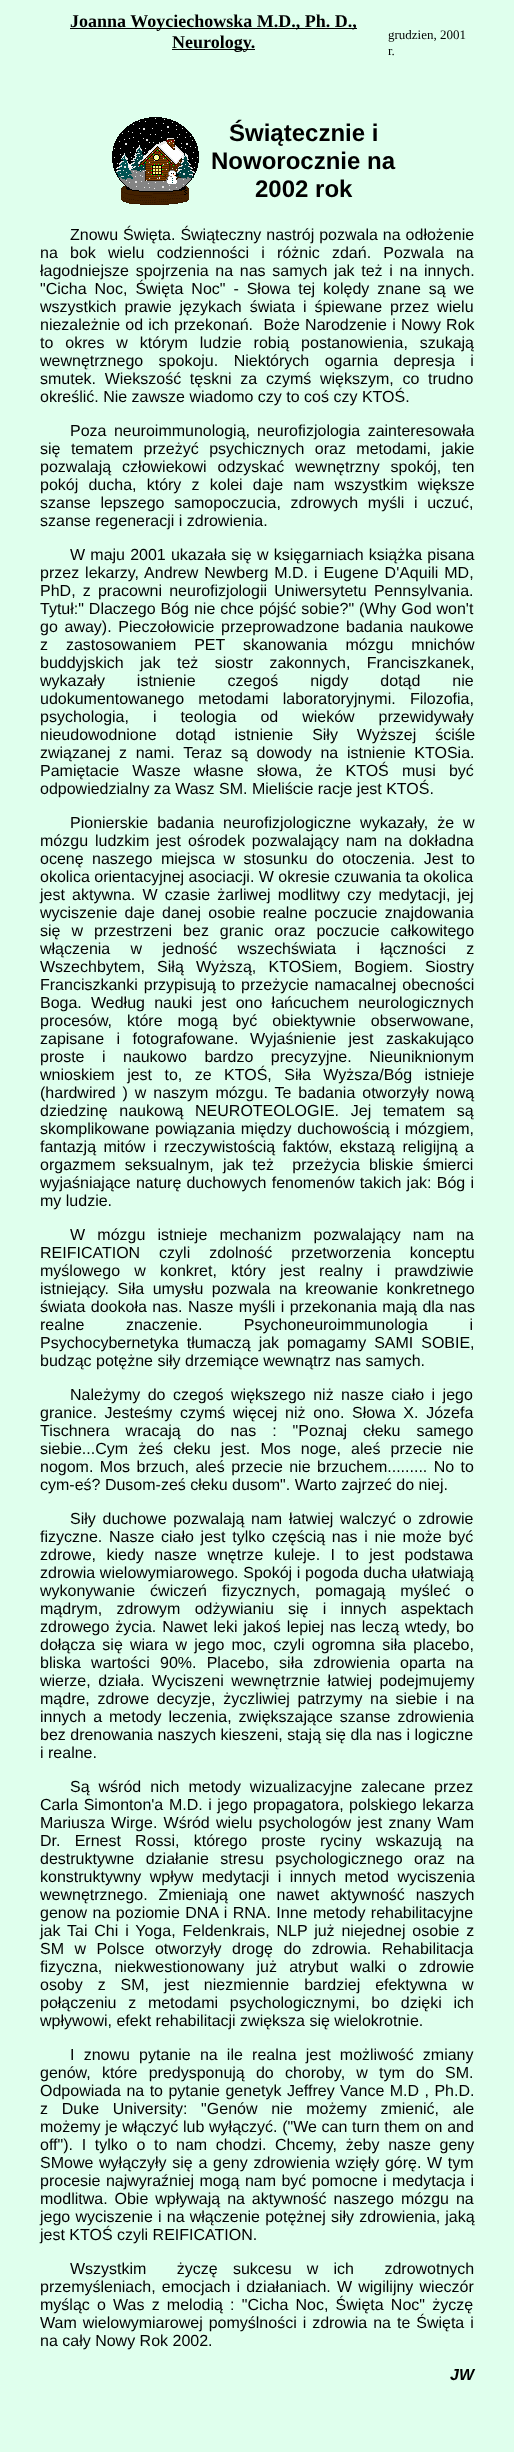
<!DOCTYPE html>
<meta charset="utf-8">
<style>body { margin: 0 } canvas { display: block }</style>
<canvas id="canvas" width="514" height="2452"></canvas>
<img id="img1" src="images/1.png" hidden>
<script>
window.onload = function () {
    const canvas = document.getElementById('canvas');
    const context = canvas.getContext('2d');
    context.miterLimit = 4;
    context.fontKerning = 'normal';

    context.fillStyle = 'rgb(223, 255, 237)';
    context.fillRect(0, 0, 514, 2452);
    context.fillStyle = 'rgb(0, 0, 0)';
    context.fillRect(70, 28, 287, 1);
    context.fillRect(172, 49, 83, 1);
    context.drawImage(document.getElementById('img1'), 112, 117, 87, 88);
    context.font = 'bold 18px Liberation Serif';
    context.fillText('Joanna Woyciechowska M.D., Ph. D.,', 70, 27);
    context.fillText('Neurology.', 172, 48);
    context.font = '13px Liberation Serif';
    context.fillText('grudzien, 2001', 388, 39);
    context.fillText('r.', 388, 55);
    context.font = 'bold 24px Liberation Sans';
    context.fillText('Świątecznie i', 229, 141);
    context.fillText('Noworocznie na', 211, 169);
    context.fillText('2002 rok', 255, 197);
    context.wordSpacing = '0.5px';
    context.font = '16px Liberation Sans';
    context.fillText('Znowu Święta. Świąteczny nastrój pozwala na odłożenie', 70, 240);
    context.wordSpacing = '7.75px';
    context.fillText('na bok wielu codzienności i różnic zdań. Pozwala na', 40, 258);
    context.wordSpacing = '2.25px';
    context.fillText('łagodniejsze spojrzenia na nas samych jak też i na innych.', 40, 276);
    context.wordSpacing = '3.5px';
    context.fillText('"Cicha Noc, Święta Noc" - Słowa tej kolędy znane są we', 40, 294);
    context.fillText('wszystkich prawie językach świata i śpiewane przez wielu', 40, 312);
    context.wordSpacing = '0.75px';
    context.fillText('niezależnie od ich przekonań.  Boże Narodzenie i Nowy Rok', 40, 330);
    context.wordSpacing = '7.5px';
    context.fillText('to okres w którym ludzie robią postanowienia, szukają', 40, 348);
    context.wordSpacing = '11px';
    context.fillText('wewnętrznego spokoju. Niektórych ogarnia depresja i', 40, 366);
    context.wordSpacing = '4.25px';
    context.fillText('smutek. Wiekszość tęskni za czymś większym, co trudno', 40, 384);
    context.wordSpacing = '0px';
    context.fillText('określić. Nie zawsze wiadomo czy to coś czy KTOŚ.', 40, 402);
    context.wordSpacing = '3px';
    context.fillText('Poza neuroimmunologią,', 70, 436);
    context.fillText('neurofizjologia zainteresowała', 257, 436);
    context.wordSpacing = '6px';
    context.fillText('się tematem przeżyć psychicznych oraz metodami, jakie', 40, 454);
    context.wordSpacing = '6.5px';
    context.fillText('pozwalają człowiekowi odzyskać wewnętrzny spokój, ten', 40, 472);
    context.wordSpacing = '5.75px';
    context.fillText('pokój ducha, który z kolei daje nam wszystkim większe', 40, 490);
    context.wordSpacing = '5.25px';
    context.fillText('szanse lepszego samopoczucia, zdrowych myśli i uczuć,', 40, 508);
    context.wordSpacing = '0px';
    context.fillText('szanse regeneracji i zdrowienia.', 40, 526);
    context.wordSpacing = '0.75px';
    context.fillText('W maju 2001 ukazała się w księgarniach książka pisana', 70, 560);
    context.wordSpacing = '1.5px';
    context.fillText('przez lekarzy, Andrew Newberg M.D. i Eugene D\'Aquili MD,', 40, 578);
    context.wordSpacing = '2.75px';
    context.fillText('PhD, z pracowni neurofizjologii Uniwersytetu Pennsylvania.', 40, 596);
    context.wordSpacing = '0.5px';
    context.fillText('Tytuł:" Dlaczego Bóg nie chce pójść sobie?" (Why God won\'t', 40, 614);
    context.wordSpacing = '2.25px';
    context.fillText('go away). Pieczołowicie przeprowadzone badania naukowe', 40, 632);
    context.wordSpacing = '13.5px';
    context.fillText('z zastosowaniem PET skanowania mózgu mnichów', 40, 650);
    context.wordSpacing = '12px';
    context.fillText('buddyjskich jak też siostr zakonnych, Franciszkanek,', 40, 668);
    context.wordSpacing = '27.5px';
    context.fillText('wykazały istnienie czegoś nigdy dotąd nie', 40, 686);
    context.wordSpacing = '9.75px';
    context.fillText('udokumentowanego metodami laboratoryjnymi. Filozofia,', 40, 704);
    context.wordSpacing = '19.5px';
    context.fillText('psychologia, i teologia od wieków przewidywały', 40, 722);
    context.wordSpacing = '14.5px';
    context.fillText('nieudowodnione dotąd istnienie Siły Wyższej ściśle', 40, 740);
    context.wordSpacing = '4.25px';
    context.fillText('związanej z nami. Teraz są dowody na istnienie KTOSia.', 40, 758);
    context.wordSpacing = '8.75px';
    context.fillText('Pamiętacie Wasze własne słowa, że KTOŚ musi być', 40, 776);
    context.wordSpacing = '0px';
    context.fillText('odpowiedzialny za Wasz SM. Mieliście racje jest KTOŚ.', 40, 794);
    context.wordSpacing = '4.5px';
    context.fillText('Pionierskie badania neurofizjologiczne wykazały, że w', 70, 828);
    context.wordSpacing = '2.5px';
    context.fillText('mózgu ludzkim jest ośrodek pozwalający nam na dokładna', 40, 846);
    context.wordSpacing = '0px';
    context.fillText('ocenę', 40, 864);
    context.wordSpacing = '4px';
    context.fillText('naszego miejsca w stosunku do otoczenia. Jest to', 92, 864);
    context.wordSpacing = '0px';
    context.fillText('okolica orientacyjnej asociacji. W okresie czuwania ta okolica', 40, 882);
    context.wordSpacing = '2.75px';
    context.fillText('jest aktywna. W czasie żarliwej modlitwy czy medytacji, jej', 40, 900);
    context.fillText('wyciszenie daje danej osobie realne poczucie znajdowania', 40, 918);
    context.wordSpacing = '6.5px';
    context.fillText('się w przestrzeni bez granic oraz poczucie całkowitego', 40, 936);
    context.wordSpacing = '15.75px';
    context.fillText('włączenia w jedność wszechświata i łączności z', 40, 954);
    context.wordSpacing = '7.75px';
    context.fillText('Wszechbytem, Siłą Wyższą, KTOSiem, Bogiem. Siostry', 40, 972);
    context.wordSpacing = '1.5px';
    context.fillText('Franciszkanki przypisują to przeżycie namacalnej obecności', 40, 990);
    context.wordSpacing = '4.75px';
    context.fillText('Boga. Według nauki jest ono łańcuchem neurologicznych', 40, 1008);
    context.wordSpacing = '10.5px';
    context.fillText('procesów, które mogą być obiektywnie obserwowane,', 40, 1026);
    context.wordSpacing = '8px';
    context.fillText('zapisane i fotografowane.', 40, 1044);
    context.fillText('Wyjaśnienie jest zaskakująco', 250, 1044);
    context.wordSpacing = '13px';
    context.fillText('proste i naukowo bardzo precyzyjne. Nieuniknionym', 40, 1062);
    context.wordSpacing = '8px';
    context.fillText('wnioskiem jest to, ze KTOŚ, Siła Wyższa/Bóg istnieje', 40, 1080);
    context.wordSpacing = '2.5px';
    context.fillText('(hardwired ) w naszym mózgu. Te badania otworzyły nową', 40, 1098);
    context.wordSpacing = '7.25px';
    context.fillText('dziedzinę naukową NEUROTEOLOGIE. Jej tematem są', 40, 1116);
    context.wordSpacing = '1.25px';
    context.fillText('skomplikowane powiązania między duchowością i mózgiem,', 40, 1134);
    context.wordSpacing = '3px';
    context.fillText('fantazją mitów', 40, 1152);
    context.fillText('i rzeczywistością faktów, ekstazą religijną a', 153, 1152);
    context.wordSpacing = '4.75px';
    context.fillText('orgazmem seksualnym, jak też  przeżycia bliskie śmierci', 40, 1170);
    context.wordSpacing = '0.75px';
    context.fillText('wyjaśniające naturę duchowych fenomenów takich jak: Bóg i', 40, 1188);
    context.wordSpacing = '0px';
    context.fillText('my ludzie.', 40, 1206);
    context.wordSpacing = '7.75px';
    context.fillText('W mózgu istnieje mechanizm pozwalający nam na', 70, 1240);
    context.wordSpacing = '14.5px';
    context.fillText('REIFICATION czyli zdolność przetworzenia konceptu', 40, 1258);
    context.wordSpacing = '9.75px';
    context.fillText('myślowego w konkret, który jest realny i prawdziwie', 40, 1276);
    context.wordSpacing = '4px';
    context.fillText('istniejący. Siła umysłu pozwala na kreowanie konkretnego', 40, 1294);
    context.wordSpacing = '1px';
    context.fillText('świata dookoła nas. Nasze myśli i przekonania mają dla nas', 40, 1312);
    context.wordSpacing = '37px';
    context.fillText('realne znaczenie. Psychoneuroimmunologia i', 40, 1330);
    context.wordSpacing = '3.5px';
    context.fillText('Psychocybernetyka tłumaczą jak pomagamy SAMI SOBIE,', 40, 1348);
    context.wordSpacing = '0px';
    context.fillText('budząc potężne siły drzemiące wewnątrz nas samych.', 40, 1366);
    context.wordSpacing = '3px';
    context.fillText('Należymy do czegoś większego niż nasze ciało i jego', 70, 1400);
    context.wordSpacing = '3.25px';
    context.fillText('granice. Jesteśmy czymś więcej niż ono. Słowa X. Józefa', 40, 1418);
    context.wordSpacing = '11.5px';
    context.fillText('Tischnera wracają do nas : "Poznaj cłeku samego', 40, 1436);
    context.wordSpacing = '5.75px';
    context.fillText('siebie...Cym żeś cłeku jest. Mos noge, aleś przecie nie', 40, 1454);
    context.wordSpacing = '2px';
    context.fillText('nogom. Mos brzuch, aleś przecie nie brzuchem......... No to', 40, 1472);
    context.wordSpacing = '0px';
    context.fillText('cym-eś? Dusom-ześ cłeku dusom". Warto zajrzeć do niej.', 40, 1490);
    context.wordSpacing = '2.25px';
    context.fillText('Siły duchowe pozwalają nam łatwiej walczyć o zdrowie', 70, 1524);
    context.fillText('fizyczne. Nasze ciało jest tylko częścią nas i nie może być', 40, 1542);
    context.wordSpacing = '6px';
    context.fillText('zdrowe, kiedy nasze wnętrze kuleje. I to jest podstawa', 40, 1560);
    context.wordSpacing = '0.25px';
    context.fillText('zdrowia wielowymiarowego. Spokój i pogoda ducha ułatwiają', 40, 1578);
    context.wordSpacing = '10.5px';
    context.fillText('wykonywanie ćwiczeń fizycznych, pomagają myśleć o', 40, 1596);
    context.wordSpacing = '9.75px';
    context.fillText('mądrym, zdrowym odżywianiu się i innych aspektach', 40, 1614);
    context.wordSpacing = '1.5px';
    context.fillText('zdrowego życia. Nawet leki jakoś lepiej nas leczą wtedy, bo', 40, 1632);
    context.wordSpacing = '2.75px';
    context.fillText('dołącza się wiara w jego moc, czyli ogromna siła placebo,', 40, 1650);
    context.wordSpacing = '5.75px';
    context.fillText('bliska wartości 90%. Placebo, siła zdrowienia oparta na', 40, 1668);
    context.wordSpacing = '3px';
    context.fillText('wierze, działa. Wyciszeni wewnętrznie łatwiej podejmujemy', 40, 1686);
    context.wordSpacing = '3.25px';
    context.fillText('mądre, zdrowe decyzje, życzliwiej patrzymy na siebie i na', 40, 1704);
    context.wordSpacing = '2.5px';
    context.fillText('innych a metody leczenia, zwiększające szanse zdrowienia', 40, 1722);
    context.wordSpacing = '0px';
    context.fillText('bez drenowania naszych kieszeni, stają się dla nas i logiczne', 40, 1740);
    context.fillText('i realne.', 40, 1758);
    context.wordSpacing = '4.5px';
    context.fillText('Są wśród nich metody wizualizacyjne zalecane przez', 70, 1792);
    context.wordSpacing = '1px';
    context.fillText('Carla Simonton\'a', 40, 1810);
    context.fillText('M.D. i jego propagatora, polskiego lekarza', 169, 1810);
    context.wordSpacing = '1.75px';
    context.fillText('Mariusza Wirge. Wśród wielu psychologów jest znany Wam', 40, 1828);
    context.wordSpacing = '9.75px';
    context.fillText('Dr. Ernest Rossi, którego proste ryciny wskazują na', 40, 1846);
    context.wordSpacing = '7px';
    context.fillText('destruktywne działanie stresu psychologicznego oraz na', 40, 1864);
    context.wordSpacing = '4px';
    context.fillText('konstruktywny wpływ medytacji i innych metod wyciszenia', 40, 1882);
    context.wordSpacing = '6.5px';
    context.fillText('wewnętrznego. Zmieniają one nawet aktywność naszych', 40, 1900);
    context.wordSpacing = '1px';
    context.fillText('genow na poziomie DNA i RNA. Inne metody rehabilitacyjne', 40, 1918);
    context.wordSpacing = '2.4px';
    context.fillText('jak Tai Chi i Yoga, Feldenkrais, NLP już niejednej osobie z', 40, 1936);
    context.wordSpacing = '6px';
    context.fillText('SM w Polsce otworzyły drogę do zdrowia. Rehabilitacja', 40, 1954);
    context.wordSpacing = '7.75px';
    context.fillText('fizyczna, niekwestionowany już atrybut walki o zdrowie', 40, 1972);
    context.wordSpacing = '10.5px';
    context.fillText('osoby z SM, jest niezmiennie bardziej efektywna w', 40, 1990);
    context.wordSpacing = '7.25px';
    context.fillText('połączeniu z metodami psychologicznymi, bo dzięki ich', 40, 2008);
    context.wordSpacing = '0px';
    context.fillText('wpływowi, efekt rehabilitacji zwiększa się wielokrotnie.', 40, 2026);
    context.wordSpacing = '4.75px';
    context.fillText('I znowu pytanie na ile realna jest możliwość zmiany', 70, 2060);
    context.wordSpacing = '6.75px';
    context.fillText('genów, które predysponują do choroby, w tym do SM.', 40, 2078);
    context.wordSpacing = '1px';
    context.fillText('Odpowiada na to pytanie genetyk Jeffrey Vance M.D , Ph.D.', 40, 2096);
    context.wordSpacing = '9.25px';
    context.fillText('z Duke University: "Genów nie możemy zmienić, ale', 40, 2114);
    context.wordSpacing = '0.25px';
    context.fillText('możemy je włączyć lub wyłączyć. ("We can turn them on and', 40, 2132);
    context.wordSpacing = '4.25px';
    context.fillText('off"). I tylko o to nam chodzi.', 40, 2150);
    context.fillText('Chcemy, żeby nasze geny', 275, 2150);
    context.wordSpacing = '1.25px';
    context.fillText('SMowe wyłączyły się a geny zdrowienia wzięły górę. W tym', 40, 2168);
    context.wordSpacing = '1px';
    context.fillText('procesie najwyraźniej mogą nam być pomocne i medytacja i', 40, 2186);
    context.wordSpacing = '2.5px';
    context.fillText('modlitwa. Obie wpływają na aktywność naszego mózgu na', 40, 2204);
    context.wordSpacing = '0.75px';
    context.fillText('jego wyciszenie i na włączenie potężnej siły zdrowienia, jaką', 40, 2222);
    context.wordSpacing = '0px';
    context.fillText('jest KTOŚ czyli REIFICATION.', 40, 2240);
    context.wordSpacing = '10.75px';
    context.fillText('Wszystkim  życzę sukcesu w ich  zdrowotnych', 70, 2274);
    context.wordSpacing = '1.75px';
    context.fillText('przemyśleniach, emocjach i działaniach. W wigilijny wieczór', 40, 2292);
    context.wordSpacing = '2.75px';
    context.fillText('myśląc o Was z melodią : "Cicha Noc, Święta Noc" życzę', 40, 2310);
    context.wordSpacing = '1.5px';
    context.fillText('Wam wielowymiarowej pomyślności i zdrowia na te Święta i', 40, 2328);
    context.wordSpacing = '0px';
    context.fillText('na cały Nowy Rok 2002.', 40, 2346);
    context.font = 'italic bold 16px Liberation Sans';
    context.fillText('JW', 450, 2380);
};
</script>
